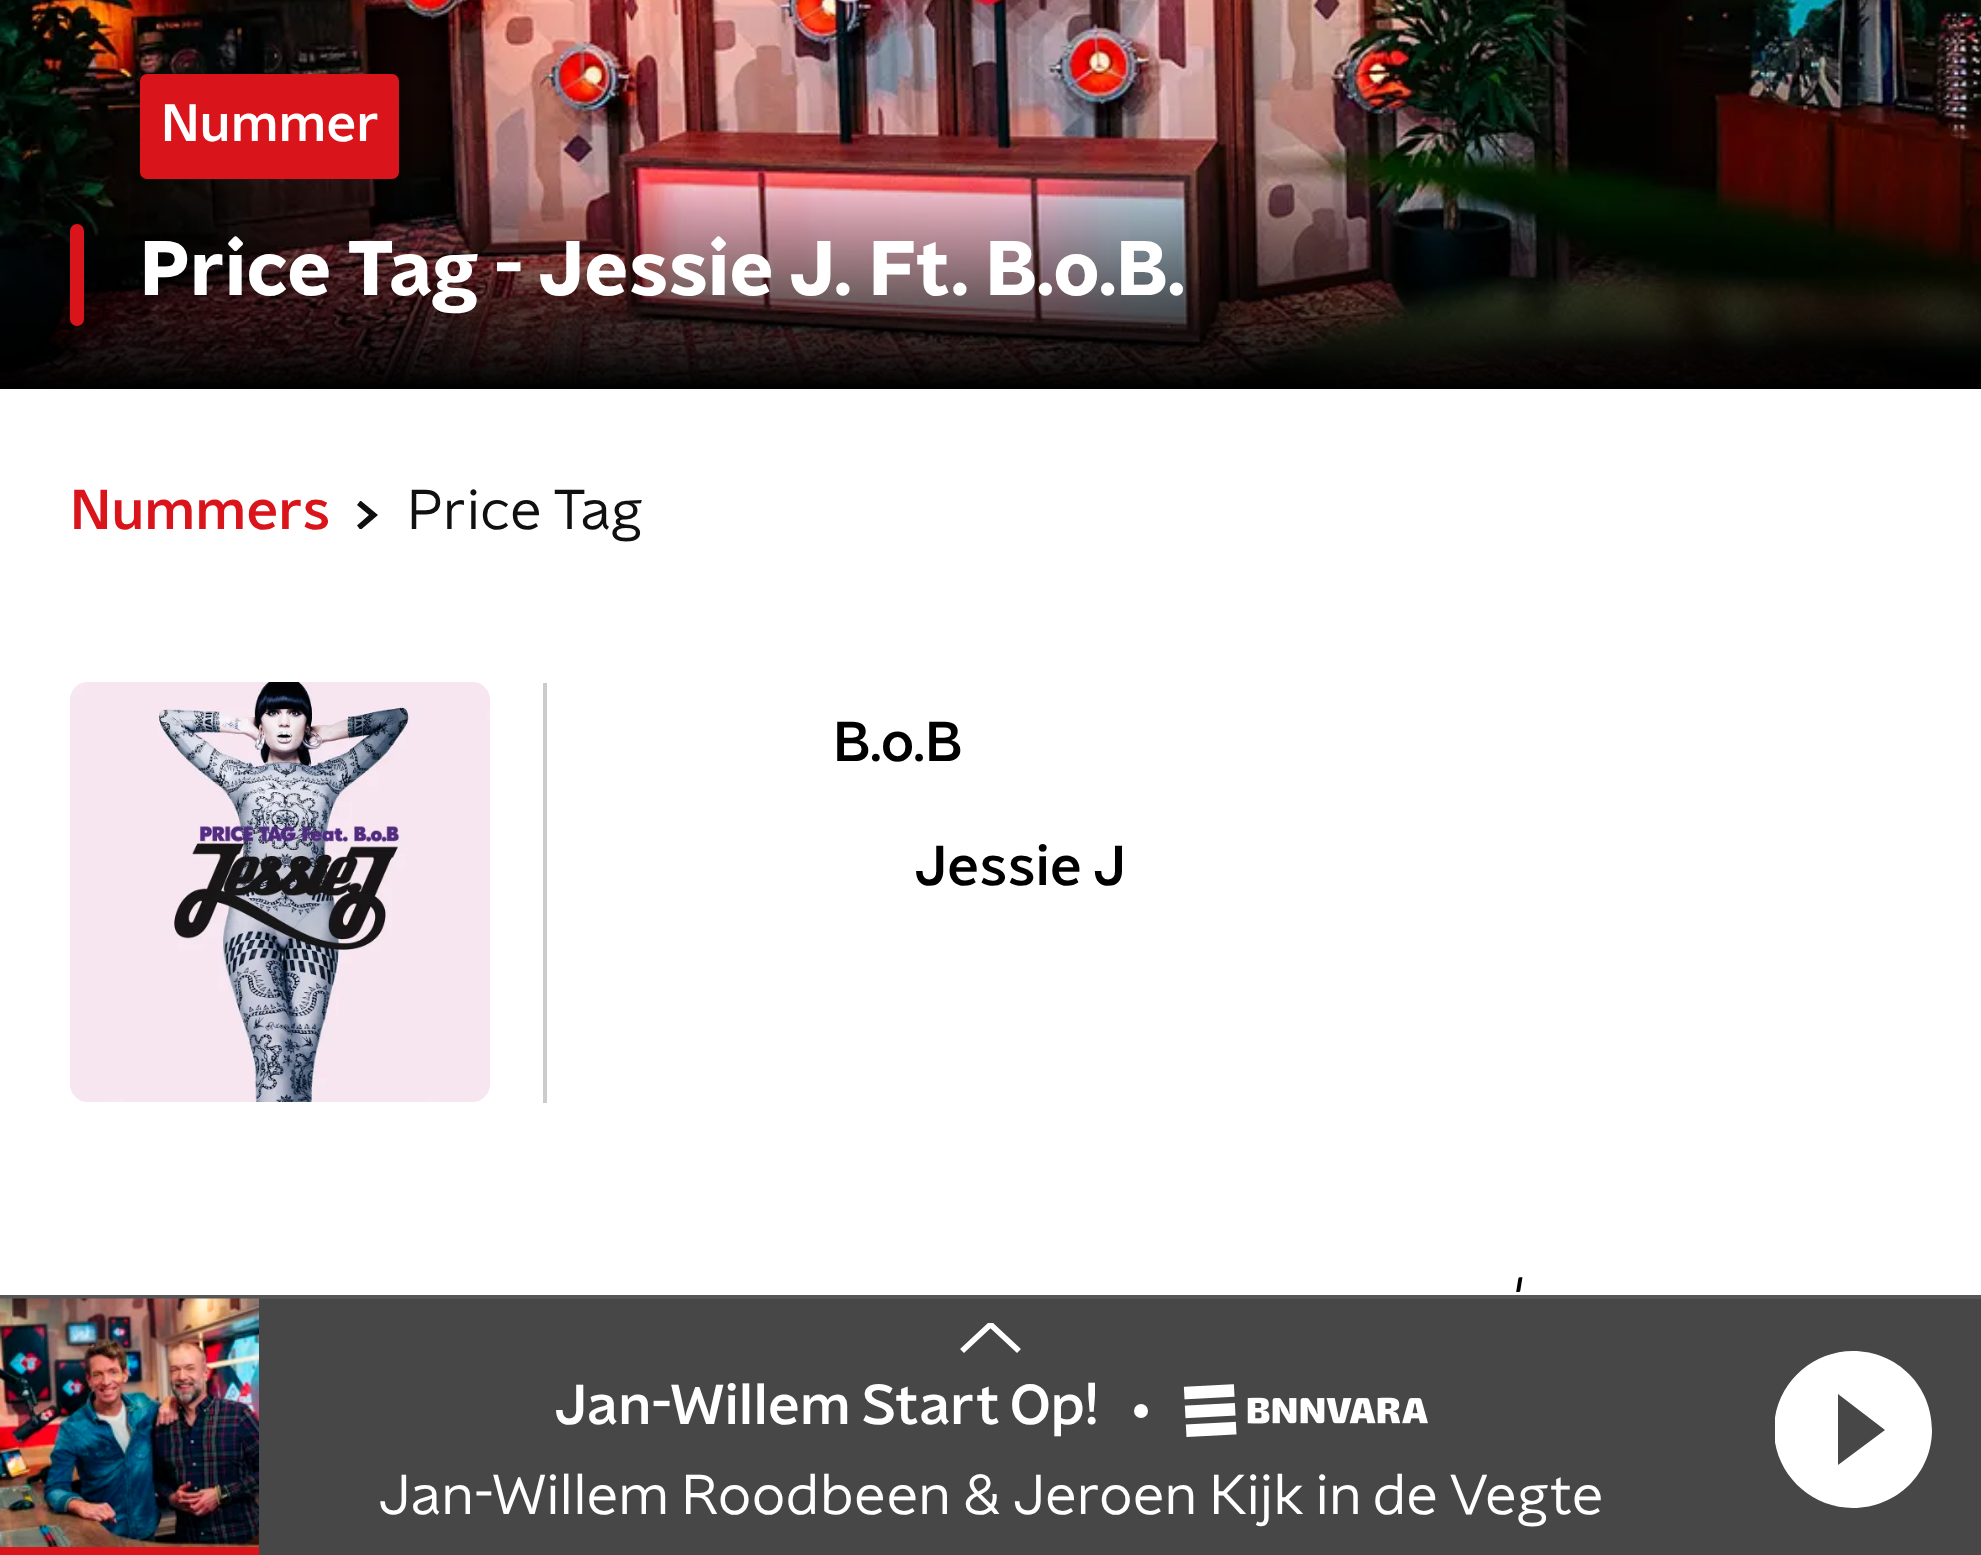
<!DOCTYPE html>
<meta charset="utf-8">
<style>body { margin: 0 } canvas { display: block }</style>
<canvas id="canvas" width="1981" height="1555"></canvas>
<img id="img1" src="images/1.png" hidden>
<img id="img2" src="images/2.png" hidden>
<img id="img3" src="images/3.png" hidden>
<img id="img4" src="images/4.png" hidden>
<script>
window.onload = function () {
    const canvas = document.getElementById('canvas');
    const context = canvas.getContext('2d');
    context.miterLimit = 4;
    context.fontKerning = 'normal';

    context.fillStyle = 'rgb(255, 255, 255)';
    context.fillRect(0, 0, 1981, 1555);
    context.fillStyle = 'rgb(0, 0, 0)';
    context.fillRect(0, 388, 1981, 1);
    context.drawImage(document.getElementById('img1'), 0, 0, 1981, 388);
    context.fillStyle = 'rgb(217, 21, 27)';
    context.beginPath();
    context.roundRect(140, 74, 259, 105, 7);
    context.fill();
    context.beginPath();
    context.roundRect(70, 224, 14, 102, 7);
    context.fill();
    context.save();
    context.beginPath();
    context.rect(329, 501, 77, 28);
    context.clip();
    context.fillStyle = 'rgb(16, 16, 16)';
    context.beginPath();
    context.moveTo(360.5, 500.5);
    context.lineTo(378, 515);
    context.lineTo(360.5, 530);
    context.lineTo(357, 525.5);
    context.lineTo(369, 515);
    context.lineTo(357, 505);
    context.closePath();
    context.fill('evenodd');
    context.restore();
    context.drawImage(document.getElementById('img2'), 70, 682, 420, 420);
    context.fillStyle = 'rgb(204, 204, 204)';
    context.fillRect(543, 683, 4, 420);
    context.fillStyle = 'rgba(9, 9, 9, 0.75)';
    context.fillRect(0, 1295, 1981, 260);
    context.fillStyle = 'rgba(95, 95, 95, 0.65)';
    context.fillRect(0, 1295, 1981, 4);
    context.drawImage(document.getElementById('img3'), 0, 1298, 259, 249);
    context.fillStyle = 'rgb(217, 21, 27)';
    context.fillRect(0, 1547, 259, 8);
    context.save();
    context.beginPath();
    context.rect(959, 1323, 63, 32);
    context.clip();
    context.beginPath();
    context.moveTo(1019, 1351);
    context.lineTo(990.5, 1324.5);
    context.lineTo(962, 1351);
    context.strokeStyle = 'rgb(255, 255, 255)';
    context.lineWidth = 5.7;
    context.stroke();
    context.restore();
    context.fillStyle = 'rgb(255, 255, 255)';
    context.beginPath();
    context.arc(1141, 1411, 7, 0, 2 * Math.PI);
    context.fill();
    context.drawImage(document.getElementById('img4'), 1183, 1384, 245, 53);
    context.save();
    context.beginPath();
    context.rect(1775, 1351, 157, 158);
    context.clip();
    context.beginPath();
    context.moveTo(1853, 1351);
    context.bezierCurveTo(1810, 1351, 1774, 1386, 1774, 1430);
    context.bezierCurveTo(1774, 1473, 1810, 1508, 1853, 1508);
    context.bezierCurveTo(1897, 1508, 1932, 1473, 1932, 1430);
    context.bezierCurveTo(1932, 1386, 1897, 1351, 1853, 1351);
    context.closePath();
    context.moveTo(1838, 1465);
    context.lineTo(1838, 1394);
    context.lineTo(1885, 1430);
    context.closePath();
    context.fill();
    context.restore();
    context.font = '500 52.5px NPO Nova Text';
    context.fillText('Nummer', 161, 141);
    context.font = 'bold 77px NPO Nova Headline';
    context.fillText('Price Tag - Jessie J. Ft. B.o.B.', 140, 295);
    context.font = '500 56px NPO Nova Text';
    context.fillStyle = 'rgb(217, 21, 27)';
    context.fillText('Nummers', 70, 529);
    context.font = '56px NPO Nova Text';
    context.fillStyle = 'rgb(16, 16, 16)';
    context.fillText('Price Tag', 407, 529);
    context.font = '500 56px NPO Nova Text';
    context.fillStyle = 'rgb(0, 0, 0)';
    context.fillText('B.o.B', 833, 761);
    context.fillText('Jessie J', 914, 885);
    context.font = '56px NPO Nova Text';
    context.fillText('\'', 1514, 1318);
    context.font = '500 56px NPO Nova Text';
    context.fillStyle = 'rgb(255, 255, 255)';
    context.fillText('Jan-Willem Start Op!', 554, 1424);
    context.font = '56px NPO Nova Text';
    context.fillText('Jan-Willem Roodbeen & Jeroen Kijk in de Vegte', 378, 1514);
};
</script>
